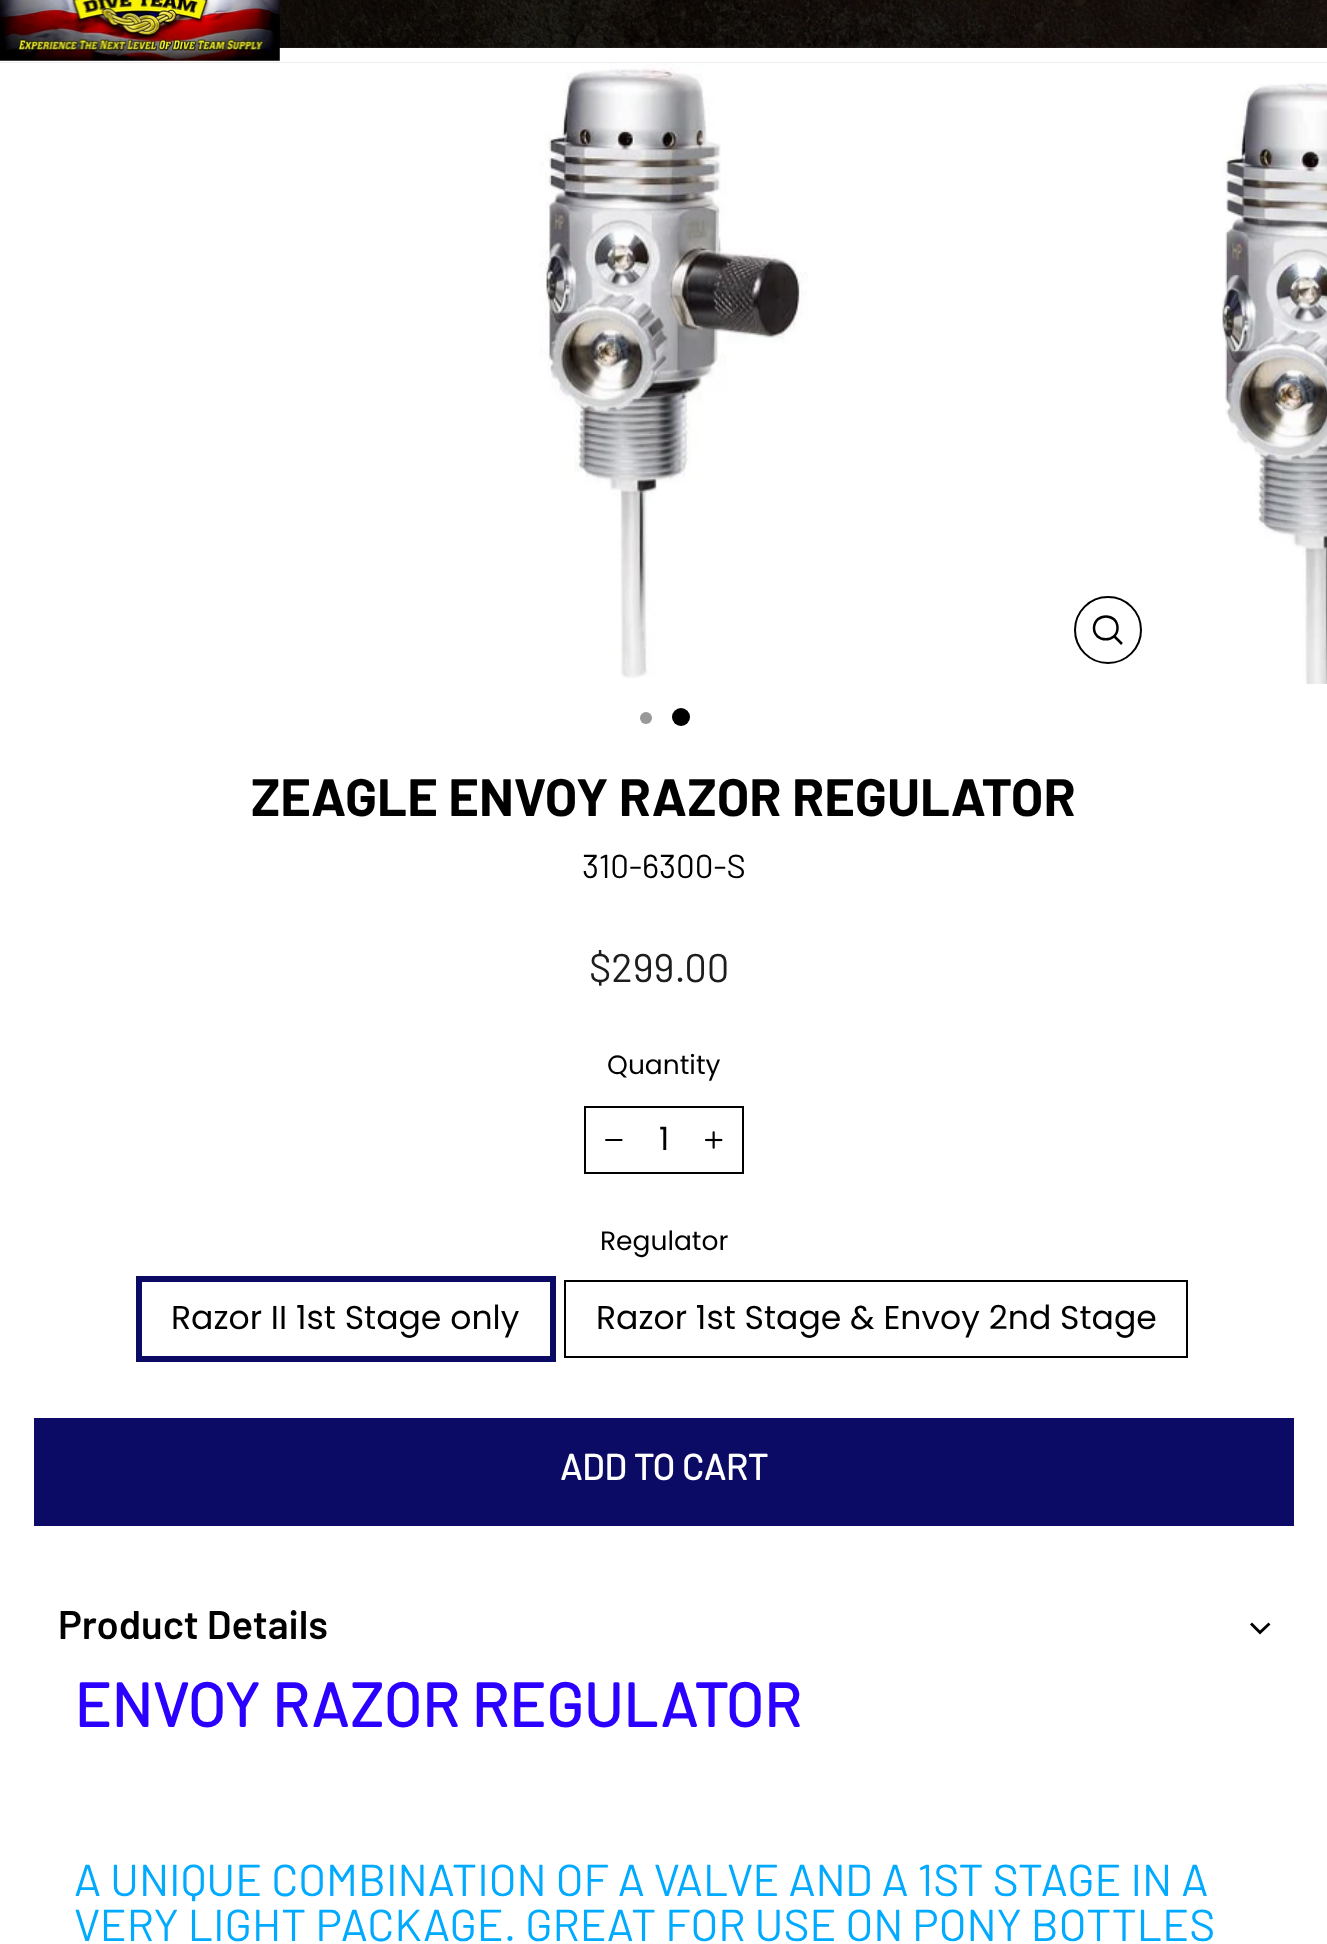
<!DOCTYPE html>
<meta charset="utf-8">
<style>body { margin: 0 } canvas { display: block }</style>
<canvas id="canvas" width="1327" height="1944"></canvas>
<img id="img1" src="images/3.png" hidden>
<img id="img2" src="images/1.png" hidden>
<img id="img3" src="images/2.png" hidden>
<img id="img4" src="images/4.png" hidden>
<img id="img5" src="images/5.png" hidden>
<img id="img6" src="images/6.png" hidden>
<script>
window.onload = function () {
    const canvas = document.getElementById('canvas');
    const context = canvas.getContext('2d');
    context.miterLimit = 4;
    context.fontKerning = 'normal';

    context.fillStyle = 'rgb(255, 255, 255)';
    context.fillRect(0, 0, 1327, 1944);
    context.drawImage(document.getElementById('img1'), 539, 63, 269, 615);
    context.save();
    context.beginPath();
    context.rect(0, 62, 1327, 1);
    context.clip();
    context.fillStyle = 'rgba(0, 0, 0, 0.2)';
    context.filter = 'blur(1px)';
    context.beginPath();
    context.rect(0, -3, 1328, 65);
    context.fill();
    context.filter = 'none';
    context.restore();
    context.drawImage(document.getElementById('img2'), 279, 0, 1048, 48);
    context.drawImage(document.getElementById('img3'), 0, 0, 280, 61);
    context.beginPath();
    context.arc(1108, 630, 33, 0, 2 * Math.PI);
    context.strokeStyle = 'rgb(0, 0, 0)';
    context.lineWidth = 2;
    context.stroke();
    context.beginPath();
    context.moveTo(1117.5, 628);
    context.bezierCurveTo(1117.5, 643, 1094, 643, 1094, 628);
    context.bezierCurveTo(1094.5, 612.5, 1117.5, 612.5, 1117.5, 628);
    context.closePath();
    context.moveTo(1122, 644);
    context.lineTo(1114, 636);
    context.lineWidth = 2.5;
    context.stroke();
    context.drawImage(document.getElementById('img4'), 1220, 78, 107, 606);
    context.fillStyle = 'rgb(153, 153, 153)';
    context.beginPath();
    context.arc(646, 718, 6, 0, 2 * Math.PI);
    context.fill();
    context.fillStyle = 'rgb(0, 0, 0)';
    context.beginPath();
    context.arc(681, 717, 9, 0, 2 * Math.PI);
    context.fill();
    context.lineWidth = 2;
    context.strokeRect(585, 1107, 158, 66);
    context.drawImage(document.getElementById('img5'), 605, 1139, 18, 2);
    context.drawImage(document.getElementById('img6'), 705, 1131, 18, 18);
    context.strokeStyle = 'rgb(11, 11, 101)';
    context.lineWidth = 6;
    context.strokeRect(139, 1279, 414, 80);
    context.strokeStyle = 'rgb(0, 0, 0)';
    context.lineWidth = 2;
    context.strokeRect(565, 1281, 622, 76);
    context.fillStyle = 'rgb(11, 11, 101)';
    context.fillRect(34, 1418, 1260, 108);
    context.beginPath();
    context.moveTo(1251, 1623.5);
    context.lineTo(1260, 1632.5);
    context.lineTo(1269.5, 1623.5);
    context.lineWidth = 2.9;
    context.stroke();
    context.font = 'bold 52.5px Barlow';
    context.fillStyle = 'rgb(0, 0, 0)';
    context.fillText('ZEAGLE ENVOY RAZOR REGULATOR', 251, 816);
    context.font = '33.1px Barlow';
    context.fillText('310-6300-S', 582, 878);
    context.font = '40px Barlow';
    context.fillStyle = 'rgb(28, 29, 29)';
    context.fillText('$299.00', 589, 982);
    context.font = '26.5px Poppins';
    context.fillStyle = 'rgb(0, 0, 0)';
    context.fillText('Quantity', 607, 1074);
    context.font = '32px Poppins';
    context.fillText('1', 659, 1150);
    context.font = '26.5px Poppins';
    context.fillText('Regulator', 600, 1250);
    context.font = '33.1px Poppins';
    context.fillText('Razor II 1st Stage only', 171, 1329);
    context.fillText('Razor 1st Stage & Envoy 2nd Stage', 596, 1329);
    context.font = 'bold 36px "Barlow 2"';
    context.fillStyle = 'rgb(255, 255, 255)';
    context.fillText('ADD TO CART', 560, 1480);
    context.font = '600 40px Barlow';
    context.fillStyle = 'rgb(0, 0, 0)';
    context.fillText('Product Details', 58, 1639);
    context.font = 'bold 61.25px "Barlow 2"';
    context.fillStyle = 'rgb(43, 0, 255)';
    context.fillText('ENVOY RAZOR REGULATOR', 74, 1727);
    context.font = '44.65px Barlow';
    context.fillStyle = 'rgb(0, 170, 255)';
    context.fillText('A UNIQUE COMBINATION OF A VALVE AND A 1ST STAGE IN A', 74, 1896);
    context.fillText('VERY LIGHT PACKAGE. GREAT FOR USE ON PONY BOTTLES', 74, 1941);
};
</script>
